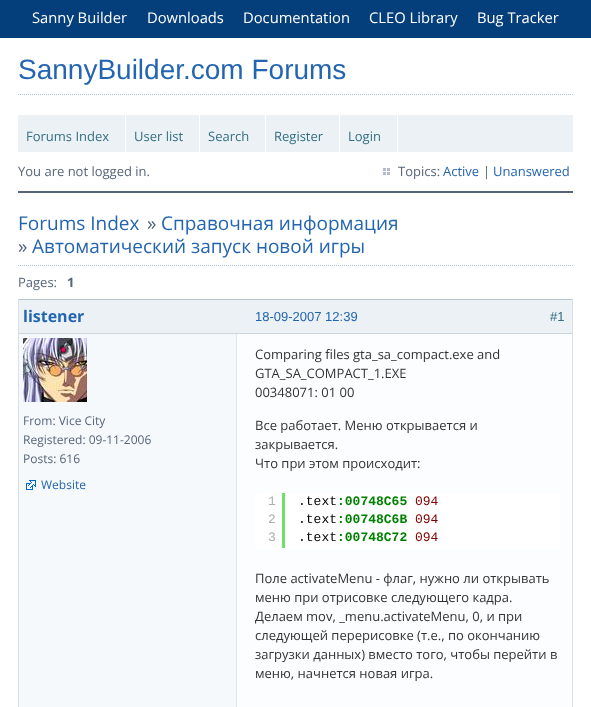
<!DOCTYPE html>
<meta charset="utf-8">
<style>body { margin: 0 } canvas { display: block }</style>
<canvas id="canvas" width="591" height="707"></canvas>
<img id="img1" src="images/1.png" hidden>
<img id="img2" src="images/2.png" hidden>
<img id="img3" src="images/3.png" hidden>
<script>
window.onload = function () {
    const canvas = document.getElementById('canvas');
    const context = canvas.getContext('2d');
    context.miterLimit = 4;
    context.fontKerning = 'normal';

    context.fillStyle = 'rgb(255, 255, 255)';
    context.fillRect(0, 0, 591, 707);
    context.fillStyle = 'rgb(5, 63, 123)';
    context.fillRect(0, 0, 591, 38);
    context.beginPath();
    context.moveTo(18, 94.5);
    context.lineTo(573, 94.5);
    context.strokeStyle = 'rgb(185, 197, 206)';
    context.setLineDash([1, 1]);
    context.stroke();
    context.fillStyle = 'rgb(235, 241, 245)';
    context.fillRect(18, 115, 555, 37);
    context.fillStyle = 'rgb(255, 255, 255)';
    context.fillRect(125, 115, 1, 37);
    context.fillRect(199, 115, 1, 37);
    context.fillRect(265, 115, 1, 37);
    context.fillRect(339, 115, 1, 37);
    context.fillRect(397, 115, 1, 37);
    context.drawImage(document.getElementById('img1'), 383, 168, 7, 7);
    context.fillStyle = 'rgb(86, 101, 121)';
    context.fillRect(18, 191, 555, 2);
    context.beginPath();
    context.moveTo(18, 265.5);
    context.lineTo(573, 265.5);
    context.stroke();
    context.fillStyle = 'rgb(246, 249, 252)';
    context.fillRect(19, 334, 217, 373);
    context.fillStyle = 'rgb(185, 197, 206)';
    context.fillRect(18, 299, 555, 1);
    context.fillStyle = 'rgb(217, 225, 231)';
    context.fillRect(572, 299, 1, 408);
    context.fillRect(18, 299, 1, 408);
    context.fillStyle = 'rgb(252, 253, 254)';
    context.fillRect(237, 334, 335, 373);
    context.fillStyle = 'rgb(223, 230, 238)';
    context.fillRect(236, 334, 1, 373);
    context.drawImage(document.getElementById('img2'), 23, 338, 64, 64);
    context.drawImage(document.getElementById('img3'), 26, 480, 10, 10);
    context.fillStyle = 'rgb(255, 255, 255)';
    context.fillRect(255, 493, 305, 56);
    context.fillStyle = 'rgb(108, 226, 108)';
    context.fillRect(282, 493, 3, 55);
    context.fillStyle = 'rgb(235, 241, 245)';
    context.fillRect(19, 300, 553, 33);
    context.fillStyle = 'rgb(202, 215, 225)';
    context.fillRect(19, 333, 553, 1);
    context.font = '14.75px Open Sans';
    context.fillStyle = 'rgb(255, 255, 255)';
    context.fillText('Sanny Builder', 32, 23);
    context.fillText('Downloads', 147, 23);
    context.fillText('Documentation', 243, 23);
    context.fillText('CLEO Library', 369, 23);
    context.fillText('Bug Tracker', 477, 23);
    context.font = '28px Liberation Sans';
    context.fillStyle = 'rgb(35, 101, 176)';
    context.fillText('SannyBuilder.com Forums', 18, 79);
    context.font = '13px Open Sans';
    context.fillStyle = 'rgb(53, 112, 130)';
    context.fillText('Forums Index', 26, 141);
    context.fillText('User list', 134, 141);
    context.fillText('Search', 208, 141);
    context.fillText('Register', 274, 141);
    context.fillText('Login', 348, 141);
    context.fillStyle = 'rgb(86, 101, 121)';
    context.fillText('You are not logged in.', 18, 176);
    context.fillText('Topics:', 398, 176);
    context.fillStyle = 'rgb(35, 101, 176)';
    context.fillText('Active', 443, 176);
    context.fillStyle = 'rgb(86, 101, 121)';
    context.fillText('|', 483, 176);
    context.fillStyle = 'rgb(35, 101, 176)';
    context.fillText('Unanswered', 493, 176);
    context.font = '19px Open Sans';
    context.fillText('Forums Index', 18, 230);
    context.fillStyle = 'rgb(86, 101, 121)';
    context.fillText('»', 147, 230);
    context.fillStyle = 'rgb(35, 101, 176)';
    context.fillText('Справочная информация', 161, 230);
    context.fillStyle = 'rgb(86, 101, 121)';
    context.fillText('»', 18, 253);
    context.fillStyle = 'rgb(35, 101, 176)';
    context.fillText('Автоматический запуск новой игры', 32, 253);
    context.font = '13px Open Sans';
    context.fillStyle = 'rgb(86, 101, 121)';
    context.fillText('Pages:', 18, 287);
    context.font = 'bold 13px Open Sans';
    context.fillText('1', 67, 287);
    context.font = 'bold 16px Open Sans';
    context.fillStyle = 'rgb(35, 101, 176)';
    context.fillText('listener', 23, 322);
    context.font = '12px Open Sans';
    context.fillStyle = 'rgb(86, 101, 121)';
    context.fillText('From: Vice City', 23, 425);
    context.fillText('Registered: 09-11-2006', 23, 444);
    context.fillText('Posts: 616', 23, 463);
    context.fillStyle = 'rgb(35, 101, 176)';
    context.fillText('Website', 41, 489);
    context.font = '13px Open Sans';
    context.fillStyle = 'rgb(51, 51, 51)';
    context.fillText('Comparing files gta_sa_compact.exe and', 255, 359);
    context.fillText('GTA_SA_COMPACT_1.EXE', 255, 378);
    context.fillText('00348071: 01 00', 255, 397);
    context.fillText('Все работает. Меню открывается и', 255, 430);
    context.fillText('закрывается.', 255, 449);
    context.fillText('Что при этом происходит:', 255, 468);
    context.font = '13px Liberation Mono';
    context.fillStyle = 'rgb(175, 175, 175)';
    context.fillText('1', 268, 505);
    context.fillText('2', 268, 523);
    context.fillText('3', 268, 541);
    context.fillStyle = 'rgb(0, 0, 0)';
    context.fillText('.text', 298, 505);
    context.font = 'bold 13px Liberation Mono';
    context.fillStyle = 'rgb(0, 128, 0)';
    context.fillText(':00748C65', 337, 505);
    context.font = '13px Liberation Mono';
    context.fillStyle = 'rgb(128, 0, 0)';
    context.fillText('094', 415, 505);
    context.fillStyle = 'rgb(0, 0, 0)';
    context.fillText('.text', 298, 523);
    context.font = 'bold 13px Liberation Mono';
    context.fillStyle = 'rgb(0, 128, 0)';
    context.fillText(':00748C6B', 337, 523);
    context.font = '13px Liberation Mono';
    context.fillStyle = 'rgb(128, 0, 0)';
    context.fillText('094', 415, 523);
    context.fillStyle = 'rgb(0, 0, 0)';
    context.fillText('.text', 298, 541);
    context.font = 'bold 13px Liberation Mono';
    context.fillStyle = 'rgb(0, 128, 0)';
    context.fillText(':00748C72', 337, 541);
    context.font = '13px Liberation Mono';
    context.fillStyle = 'rgb(128, 0, 0)';
    context.fillText('094', 415, 541);
    context.font = '13px Open Sans';
    context.fillStyle = 'rgb(51, 51, 51)';
    context.fillText('Поле activateMenu - флаг, нужно ли открывать', 255, 583);
    context.fillText('меню при отрисовке следующего кадра.', 255, 602);
    context.fillText('Делаем mov, _menu.activateMenu, 0, и при', 255, 621);
    context.fillText('следующей перерисовке (т.е., по окончанию', 255, 640);
    context.fillText('загрузки данных) вместо того, чтобы перейти в', 255, 659);
    context.fillText('меню, начнется новая игра.', 255, 678);
    context.font = '13px Liberation Sans';
    context.fillStyle = 'rgb(35, 101, 176)';
    context.fillText('18-09-2007 12:39', 255, 321);
    context.fillStyle = 'rgb(53, 112, 130)';
    context.fillText('#1', 550, 321);
};
</script>
